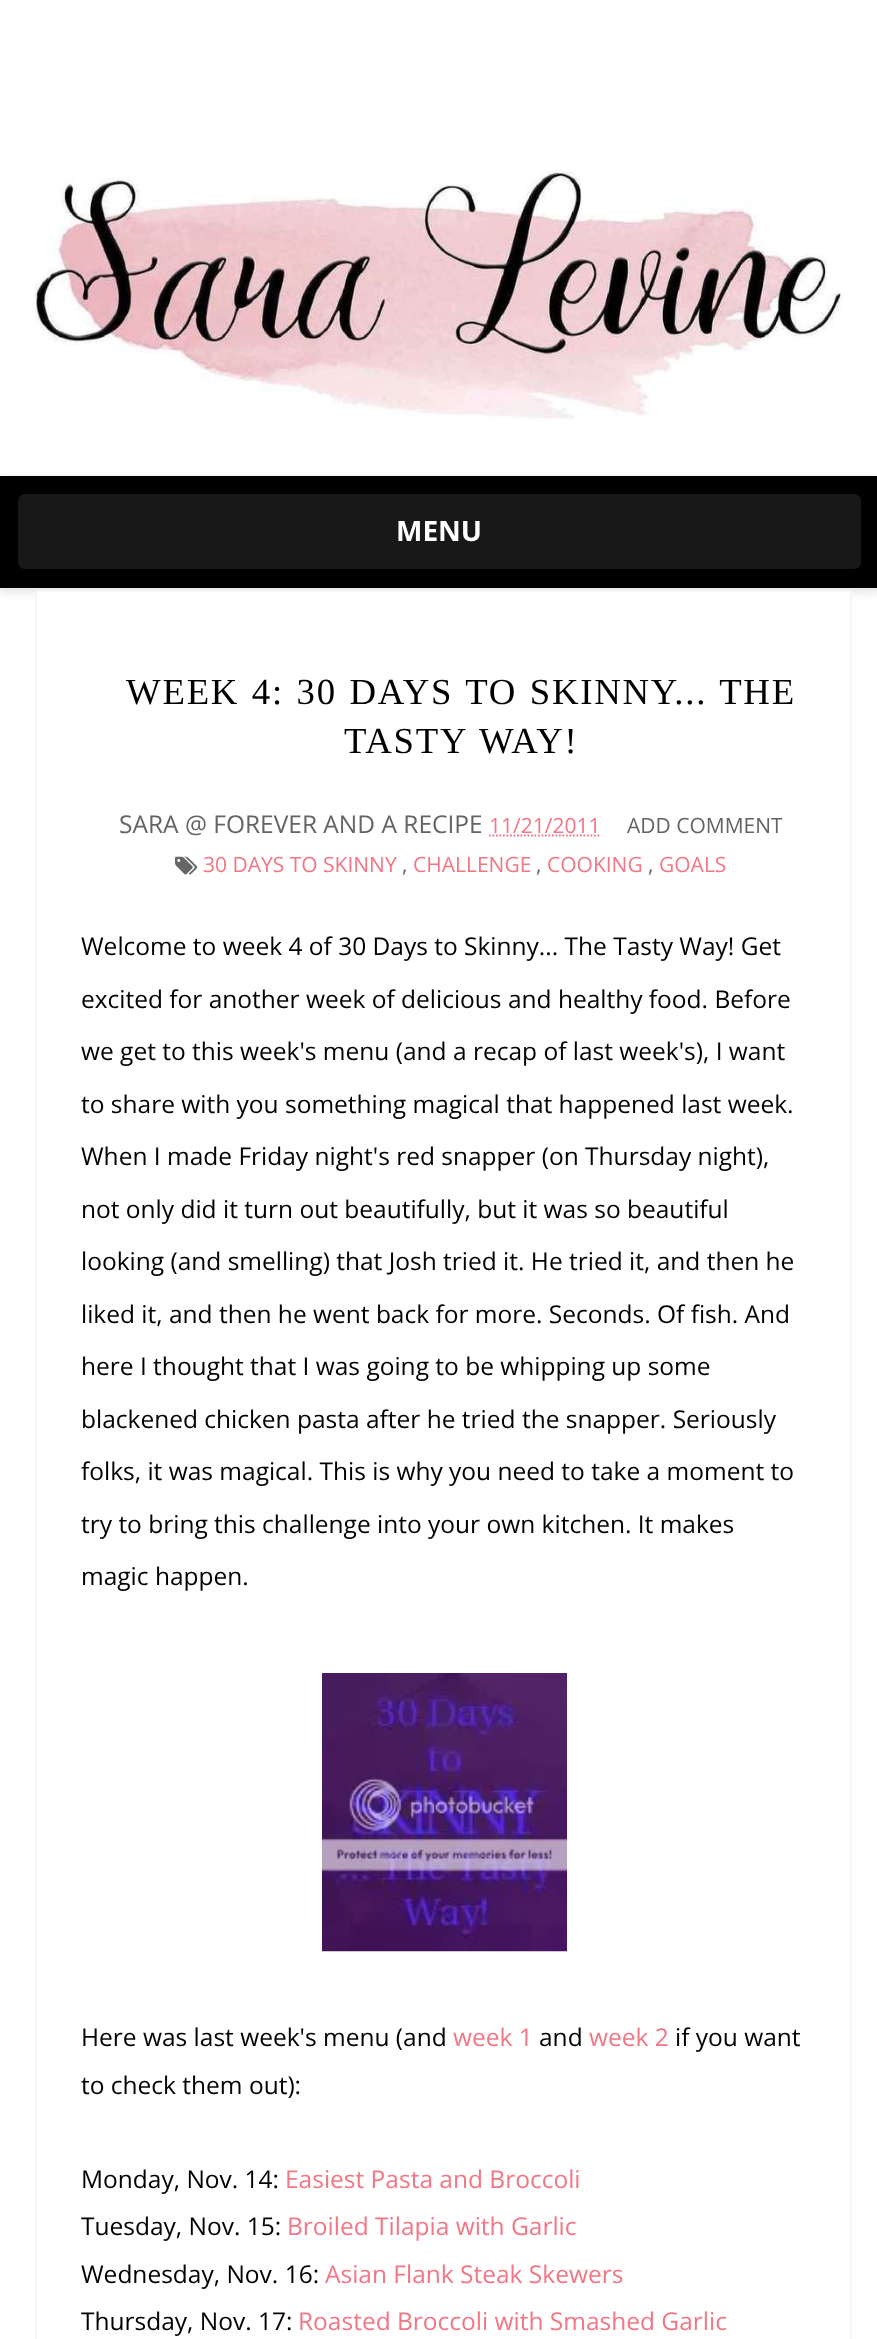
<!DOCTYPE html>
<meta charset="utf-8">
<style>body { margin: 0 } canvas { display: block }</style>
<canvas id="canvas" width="877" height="2339"></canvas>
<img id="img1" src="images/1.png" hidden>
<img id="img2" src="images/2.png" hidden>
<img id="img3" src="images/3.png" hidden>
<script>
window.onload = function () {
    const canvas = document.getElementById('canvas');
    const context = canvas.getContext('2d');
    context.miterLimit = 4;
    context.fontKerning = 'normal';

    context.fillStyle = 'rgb(255, 255, 255)';
    context.fillRect(0, 0, 877, 2339);
    context.drawImage(document.getElementById('img1'), 35, 171, 809, 249);
    context.fillStyle = 'rgba(190, 190, 190, 0.46)';
    context.filter = 'blur(4.5px)';
    context.beginPath();
    context.rect(0, 478, 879, 114);
    context.fill();
    context.filter = 'none';
    context.fillStyle = 'rgb(0, 0, 0)';
    context.fillRect(0, 476, 877, 112);
    context.fillStyle = 'rgb(233, 233, 233)';
    context.fillRect(0, 588, 877, 2);
    context.fillStyle = 'rgb(24, 24, 24)';
    context.beginPath();
    context.roundRect(18, 494, 843, 75, 7);
    context.fill();
    context.fillStyle = 'rgb(255, 255, 255)';
    context.fillRect(37, 592, 813, 6);
    context.strokeStyle = 'rgb(245, 245, 245)';
    context.lineWidth = 2;
    context.strokeRect(36, 591, 815, 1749);
    context.beginPath();
    context.moveTo(489, 835.5);
    context.lineTo(600.5, 835.5);
    context.strokeStyle = 'rgb(242, 118, 132)';
    context.lineWidth = 1.8;
    context.setLineDash([1.75, 1.75]);
    context.stroke();
    context.drawImage(document.getElementById('img2'), 175, 856, 23, 19);
    context.drawImage(document.getElementById('img3'), 322, 1673, 245, 279);
    context.font = 'bold 28px Open Sans';
    context.fillText('MENU', 396, 541);
    context.letterSpacing = '1.75px';
    context.wordSpacing = '1.75px';
    context.font = '36.75px Liberation Serif';
    context.fillStyle = 'rgb(0, 0, 0)';
    context.fillText('WEEK 4: 30 DAYS TO SKINNY... THE', 126, 704);
    context.fillText('TASTY WAY!', 344, 753);
    context.letterSpacing = '0px';
    context.wordSpacing = '0px';
    context.font = '24.5px Open Sans';
    context.fillStyle = 'rgb(100, 100, 100)';
    context.fillText('SARA @ FOREVER AND A RECIPE', 119, 833);
    context.font = '21px Open Sans';
    context.fillStyle = 'rgb(242, 118, 132)';
    context.fillText('11/21/2011', 489, 833);
    context.fillStyle = 'rgb(100, 100, 100)';
    context.fillText('ADD COMMENT', 627, 833);
    context.fillStyle = 'rgb(242, 118, 132)';
    context.fillText('30 DAYS TO SKINNY', 203, 872);
    context.fillStyle = 'rgb(100, 100, 100)';
    context.fillText(',', 402, 872);
    context.fillStyle = 'rgb(242, 118, 132)';
    context.fillText('CHALLENGE', 413, 872);
    context.fillStyle = 'rgb(100, 100, 100)';
    context.fillText(',', 536, 872);
    context.fillStyle = 'rgb(242, 118, 132)';
    context.fillText('COOKING', 547, 872);
    context.fillStyle = 'rgb(100, 100, 100)';
    context.fillText(',', 648, 872);
    context.fillStyle = 'rgb(242, 118, 132)';
    context.fillText('GOALS', 659, 872);
    context.font = '24.5px Open Sans';
    context.fillStyle = 'rgb(0, 0, 0)';
    context.fillText('Welcome to week 4 of 30 Days to Skinny... The Tasty Way! Get', 81, 955);
    context.fillText('excited for another week of delicious and healthy food. Before', 81, 1008);
    context.fillText('we get to this week\'s menu (and a recap of last week\'s), I want', 81, 1060);
    context.fillText('to share with you something magical that happened last week.', 81, 1113);
    context.fillText('When I made Friday night\'s red snapper (on Thursday night),', 81, 1165);
    context.fillText('not only did it turn out beautifully, but it was so beautiful', 81, 1218);
    context.fillText('looking (and smelling) that Josh tried it. He tried it, and then he', 81, 1270);
    context.fillText('liked it, and then he went back for more. Seconds. Of fish. And', 81, 1323);
    context.fillText('here I thought that I was going to be whipping up some', 81, 1375);
    context.fillText('blackened chicken pasta after he tried the snapper. Seriously', 81, 1428);
    context.fillText('folks, it was magical. This is why you need to take a moment to', 81, 1480);
    context.fillText('try to bring this challenge into your own kitchen. It makes', 81, 1533);
    context.fillText('magic happen.', 81, 1585);
    context.fillText('Here was last week\'s menu (and', 81, 2046);
    context.fillStyle = 'rgb(242, 118, 132)';
    context.fillText('week 1', 453, 2046);
    context.fillStyle = 'rgb(0, 0, 0)';
    context.fillText('and', 539, 2046);
    context.fillStyle = 'rgb(242, 118, 132)';
    context.fillText('week 2', 589, 2046);
    context.fillStyle = 'rgb(0, 0, 0)';
    context.fillText('if you want', 675, 2046);
    context.fillText('to check them out):', 81, 2094);
    context.fillText('Monday, Nov. 14:', 81, 2188);
    context.fillStyle = 'rgb(242, 118, 132)';
    context.fillText('Easiest Pasta and Broccoli', 285, 2188);
    context.fillStyle = 'rgb(0, 0, 0)';
    context.fillText('Tuesday, Nov. 15:', 81, 2235);
    context.fillStyle = 'rgb(242, 118, 132)';
    context.fillText('Broiled Tilapia with Garlic', 287, 2235);
    context.fillStyle = 'rgb(0, 0, 0)';
    context.fillText('Wednesday, Nov. 16:', 81, 2283);
    context.fillStyle = 'rgb(242, 118, 132)';
    context.fillText('Asian Flank Steak Skewers', 325, 2283);
    context.fillStyle = 'rgb(0, 0, 0)';
    context.fillText('Thursday, Nov. 17:', 81, 2330);
    context.fillStyle = 'rgb(242, 118, 132)';
    context.fillText('Roasted Broccoli with Smashed Garlic', 298, 2330);
};
</script>
